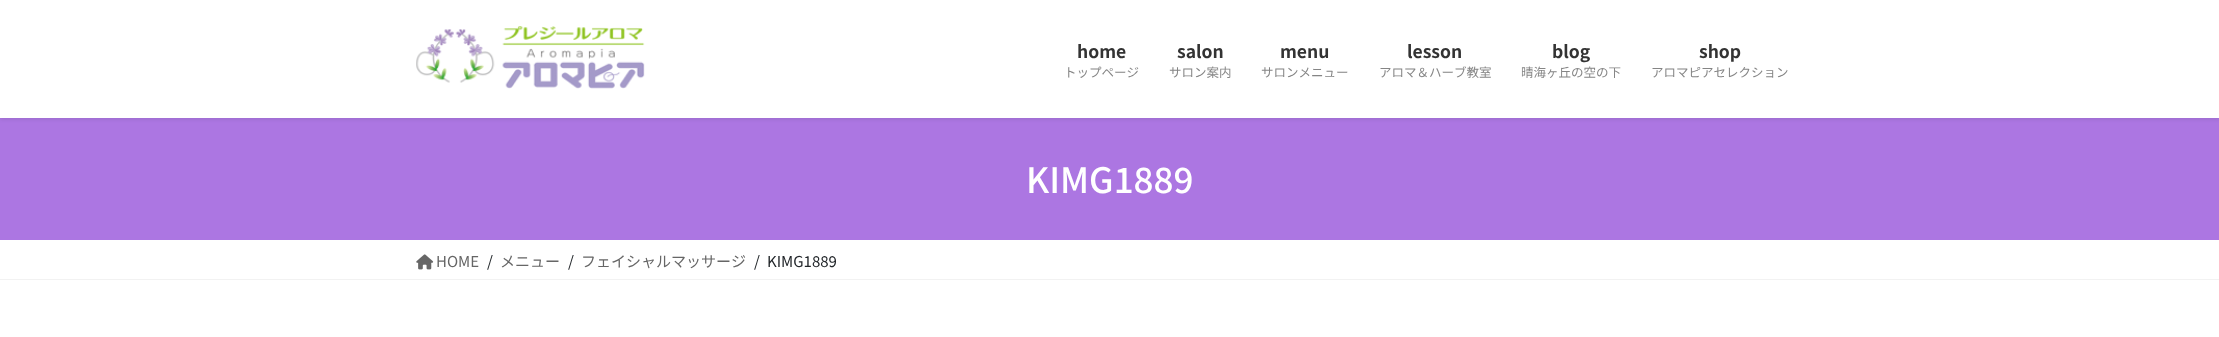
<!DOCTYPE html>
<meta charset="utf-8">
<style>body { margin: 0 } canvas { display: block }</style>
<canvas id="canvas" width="2219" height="337"></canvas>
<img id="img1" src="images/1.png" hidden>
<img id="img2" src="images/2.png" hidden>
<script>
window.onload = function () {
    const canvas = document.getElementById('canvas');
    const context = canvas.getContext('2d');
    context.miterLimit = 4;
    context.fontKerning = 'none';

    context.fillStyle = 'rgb(255, 255, 255)';
    context.fillRect(0, 0, 2219, 337);
    context.fillStyle = 'rgb(172, 118, 226)';
    context.fillRect(0, 118, 2219, 122);
    context.fillStyle = 'rgba(0, 0, 0, 0.1)';
    context.filter = 'blur(2px)';
    context.beginPath();
    context.rect(0, 1, 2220, 118);
    context.fill();
    context.filter = 'none';
    context.fillStyle = 'rgb(255, 255, 255)';
    context.fillRect(0, 0, 2219, 118);
    context.drawImage(document.getElementById('img1'), 416, 26, 229, 63);
    context.fillStyle = 'rgb(242, 242, 242)';
    context.fillRect(0, 279, 2219, 1);
    context.drawImage(document.getElementById('img2'), 416, 254, 18, 16);
    context.font = 'bold 17.5px Noto Sans JP';
    context.fillStyle = 'rgb(51, 51, 51)';
    context.fillText('home', 1077, 58);
    context.font = '12.5px Noto Sans JP';
    context.fillStyle = 'rgb(133, 133, 133)';
    context.fillText('トップページ', 1064, 77);
    context.font = 'bold 17.5px Noto Sans JP';
    context.fillStyle = 'rgb(51, 51, 51)';
    context.fillText('salon', 1177, 58);
    context.font = '12.5px Noto Sans JP';
    context.fillStyle = 'rgb(133, 133, 133)';
    context.fillText('サロン案内', 1169, 77);
    context.font = 'bold 17.5px Noto Sans JP';
    context.fillStyle = 'rgb(51, 51, 51)';
    context.fillText('menu', 1280, 58);
    context.font = '12.5px Noto Sans JP';
    context.fillStyle = 'rgb(133, 133, 133)';
    context.fillText('サロンメニュー', 1261, 77);
    context.font = 'bold 17.5px Noto Sans JP';
    context.fillStyle = 'rgb(51, 51, 51)';
    context.fillText('lesson', 1407, 58);
    context.font = '12.5px Noto Sans JP';
    context.fillStyle = 'rgb(133, 133, 133)';
    context.fillText('アロマ＆ハーブ教室', 1379, 77);
    context.font = 'bold 17.5px Noto Sans JP';
    context.fillStyle = 'rgb(51, 51, 51)';
    context.fillText('blog', 1552, 58);
    context.font = '12.5px Noto Sans JP';
    context.fillStyle = 'rgb(133, 133, 133)';
    context.fillText('晴海ヶ丘の空の下', 1521, 77);
    context.font = 'bold 17.5px Noto Sans JP';
    context.fillStyle = 'rgb(51, 51, 51)';
    context.fillText('shop', 1699, 58);
    context.font = '12.5px Noto Sans JP';
    context.fillStyle = 'rgb(133, 133, 133)';
    context.fillText('アロマピアセレクション', 1651, 77);
    context.font = '500 35px Noto Sans JP';
    context.fillStyle = 'rgb(255, 255, 255)';
    context.fillText('KIMG1889', 1026, 193);
    context.font = '15px Noto Sans JP';
    context.fillStyle = 'rgb(102, 102, 102)';
    context.fillText('HOME', 436, 267);
    context.fillStyle = 'rgb(33, 37, 41)';
    context.fillText('/', 487, 267);
    context.fillStyle = 'rgb(102, 102, 102)';
    context.fillText('メニュー', 500, 267);
    context.fillStyle = 'rgb(33, 37, 41)';
    context.fillText('/', 568, 267);
    context.fillStyle = 'rgb(102, 102, 102)';
    context.fillText('フェイシャルマッサージ', 581, 267);
    context.fillStyle = 'rgb(33, 37, 41)';
    context.fillText('/', 754, 267);
    context.fillText('KIMG1889', 767, 267);
};
</script>
